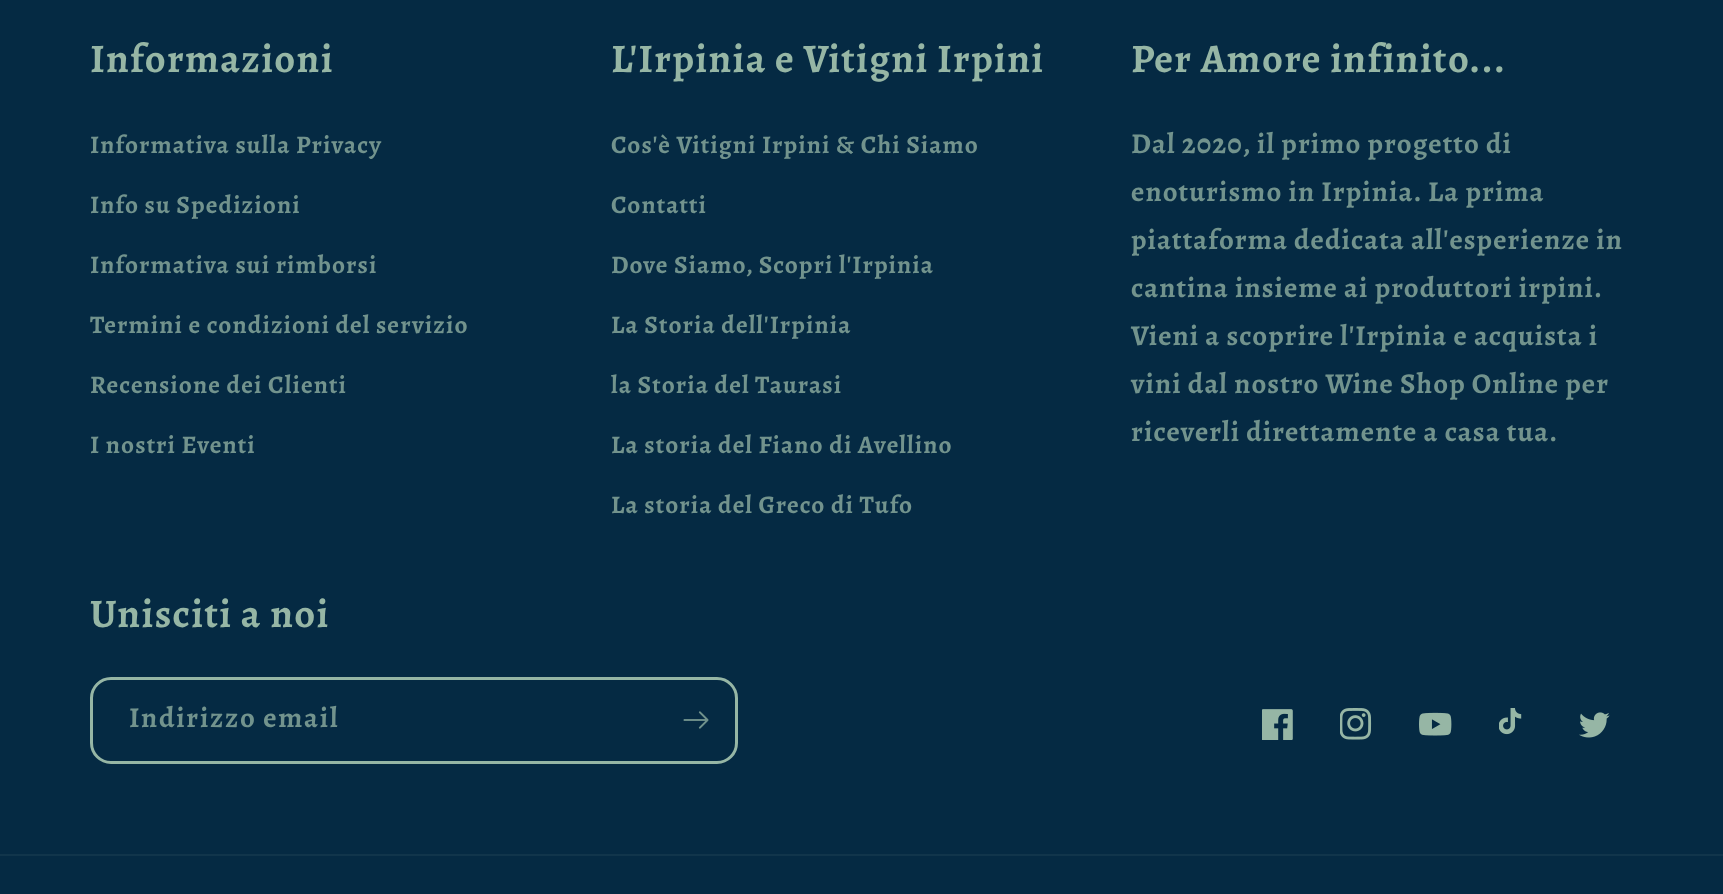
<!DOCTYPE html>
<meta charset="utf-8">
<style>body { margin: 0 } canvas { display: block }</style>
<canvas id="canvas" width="1723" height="894"></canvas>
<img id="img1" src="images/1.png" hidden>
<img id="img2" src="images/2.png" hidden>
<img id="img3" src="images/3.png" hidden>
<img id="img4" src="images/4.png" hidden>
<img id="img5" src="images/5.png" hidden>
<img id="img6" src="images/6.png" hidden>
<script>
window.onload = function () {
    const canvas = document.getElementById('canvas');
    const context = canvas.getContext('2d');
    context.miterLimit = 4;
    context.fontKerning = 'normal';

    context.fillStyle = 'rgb(5, 42, 67)';
    context.fillRect(0, 0, 1723, 894);
    context.beginPath();
    context.roundRect(91.5, 678.5, 645, 84, 19.5);
    context.strokeStyle = 'rgb(150, 182, 165)';
    context.lineWidth = 3;
    context.stroke();
    context.drawImage(document.getElementById('img1'), 683, 711, 26, 18);
    context.drawImage(document.getElementById('img2'), 1262, 709, 31, 31);
    context.drawImage(document.getElementById('img3'), 1340, 708, 32, 32);
    context.drawImage(document.getElementById('img4'), 1419, 712, 33, 24);
    context.drawImage(document.getElementById('img5'), 1499, 708, 23, 27);
    context.drawImage(document.getElementById('img6'), 1579, 712, 31, 26);
    context.fillStyle = 'rgb(17, 53, 75)';
    context.fillRect(0, 854, 1723, 2);
    context.letterSpacing = '1.35px';
    context.font = 'bold 40.5px Alegreya';
    context.fillStyle = 'rgb(150, 182, 165)';
    context.fillText('Informazioni', 90, 72);
    context.letterSpacing = '1.1px';
    context.font = 'bold 25.25px Alegreya';
    context.fillStyle = 'rgb(114, 147, 141)';
    context.fillText('Informativa sulla Privacy', 90, 153);
    context.fillText('Info su Spedizioni', 90, 213);
    context.fillText('Informativa sui rimborsi', 90, 273);
    context.fillText('Termini e condizioni del servizio', 90, 333);
    context.fillText('Recensione dei Clienti', 90, 393);
    context.fillText('I nostri Eventi', 90, 453);
    context.letterSpacing = '1.35px';
    context.font = 'bold 40.5px Alegreya';
    context.fillStyle = 'rgb(150, 182, 165)';
    context.fillText('L\'Irpinia e Vitigni Irpini', 611, 72);
    context.letterSpacing = '1.1px';
    context.font = 'bold 25.25px Alegreya';
    context.fillStyle = 'rgb(114, 147, 141)';
    context.fillText('Cos\'è Vitigni Irpini & Chi Siamo', 611, 153);
    context.fillText('Contatti', 611, 213);
    context.fillText('Dove Siamo, Scopri l\'Irpinia', 611, 273);
    context.fillText('La Storia dell\'Irpinia', 611, 333);
    context.fillText('la Storia del Taurasi', 611, 393);
    context.fillText('La storia del Fiano di Avellino', 611, 453);
    context.fillText('La storia del Greco di Tufo', 611, 513);
    context.letterSpacing = '1.35px';
    context.font = 'bold 40.5px Alegreya';
    context.fillStyle = 'rgb(150, 182, 165)';
    context.fillText('Per Amore infinito...', 1131, 72);
    context.letterSpacing = '1.1px';
    context.font = 'bold 28.75px Alegreya';
    context.fillStyle = 'rgb(114, 147, 141)';
    context.fillText('Dal 2020, il primo progetto di', 1131, 153);
    context.fillText('enoturismo in Irpinia. La prima', 1131, 201);
    context.fillText('piattaforma dedicata all\'esperienze in', 1131, 249);
    context.fillText('cantina insieme ai produttori irpini.', 1131, 297);
    context.fillText('Vieni a scoprire l\'Irpinia e acquista i', 1131, 345);
    context.fillText('vini dal nostro Wine Shop Online per', 1131, 393);
    context.fillText('riceverli direttamente a casa tua.', 1131, 441);
    context.letterSpacing = '1.35px';
    context.font = 'bold 40.5px Alegreya';
    context.fillStyle = 'rgb(150, 182, 165)';
    context.fillText('Unisciti a noi', 90, 627);
    context.letterSpacing = '1.75px';
    context.font = 'bold 28.75px Alegreya';
    context.fillStyle = 'rgb(114, 147, 141)';
    context.fillText('Indirizzo email', 129, 727);
};
</script>
